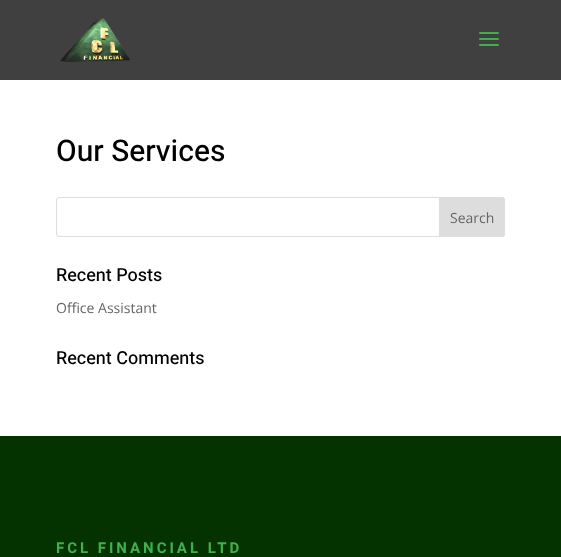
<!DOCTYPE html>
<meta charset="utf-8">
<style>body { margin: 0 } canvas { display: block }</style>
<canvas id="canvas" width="561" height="557"></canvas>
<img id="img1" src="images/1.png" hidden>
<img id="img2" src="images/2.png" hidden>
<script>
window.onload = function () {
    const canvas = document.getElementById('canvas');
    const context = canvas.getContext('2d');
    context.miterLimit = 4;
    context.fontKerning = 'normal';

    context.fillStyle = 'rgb(255, 255, 255)';
    context.fillRect(0, 0, 561, 557);
    context.fillStyle = 'rgb(64, 64, 64)';
    context.fillRect(0, 0, 561, 80);
    context.drawImage(document.getElementById('img1'), 60, 18, 70, 44);
    context.drawImage(document.getElementById('img2'), 479, 32, 20, 14);
    context.beginPath();
    context.roundRect(56.5, 197.5, 448, 39, 2.5);
    context.strokeStyle = 'rgb(221, 221, 221)';
    context.stroke();
    context.fillStyle = 'rgb(221, 221, 221)';
    context.beginPath();
    context.roundRect(439.5, 197.5, 65, 39, [0, 2.5, 2.5, 0]);
    context.fill();
    context.stroke();
    context.fillStyle = 'rgb(5, 51, 0)';
    context.fillRect(0, 436, 561, 121);
    context.font = '500 30px Heebo';
    context.fillStyle = 'rgb(0, 0, 0)';
    context.fillText('Our Services', 56, 161);
    context.font = '14px Open Sans';
    context.fillStyle = 'rgb(102, 102, 102)';
    context.fillText('Search', 450, 223);
    context.font = '500 18px Heebo';
    context.fillStyle = 'rgb(0, 0, 0)';
    context.fillText('Recent Posts', 56, 281);
    context.font = '14px Open Sans';
    context.fillStyle = 'rgb(102, 102, 102)';
    context.fillText('Office Assistant', 56, 313);
    context.font = '500 18px Heebo';
    context.fillStyle = 'rgb(0, 0, 0)';
    context.fillText('Recent Comments', 56, 364);
    context.letterSpacing = '3px';
    context.font = 'bold 15px Heebo';
    context.fillStyle = 'rgb(65, 175, 75)';
    context.fillText('FCL FINANCIAL LTD', 56, 553);
};
</script>
